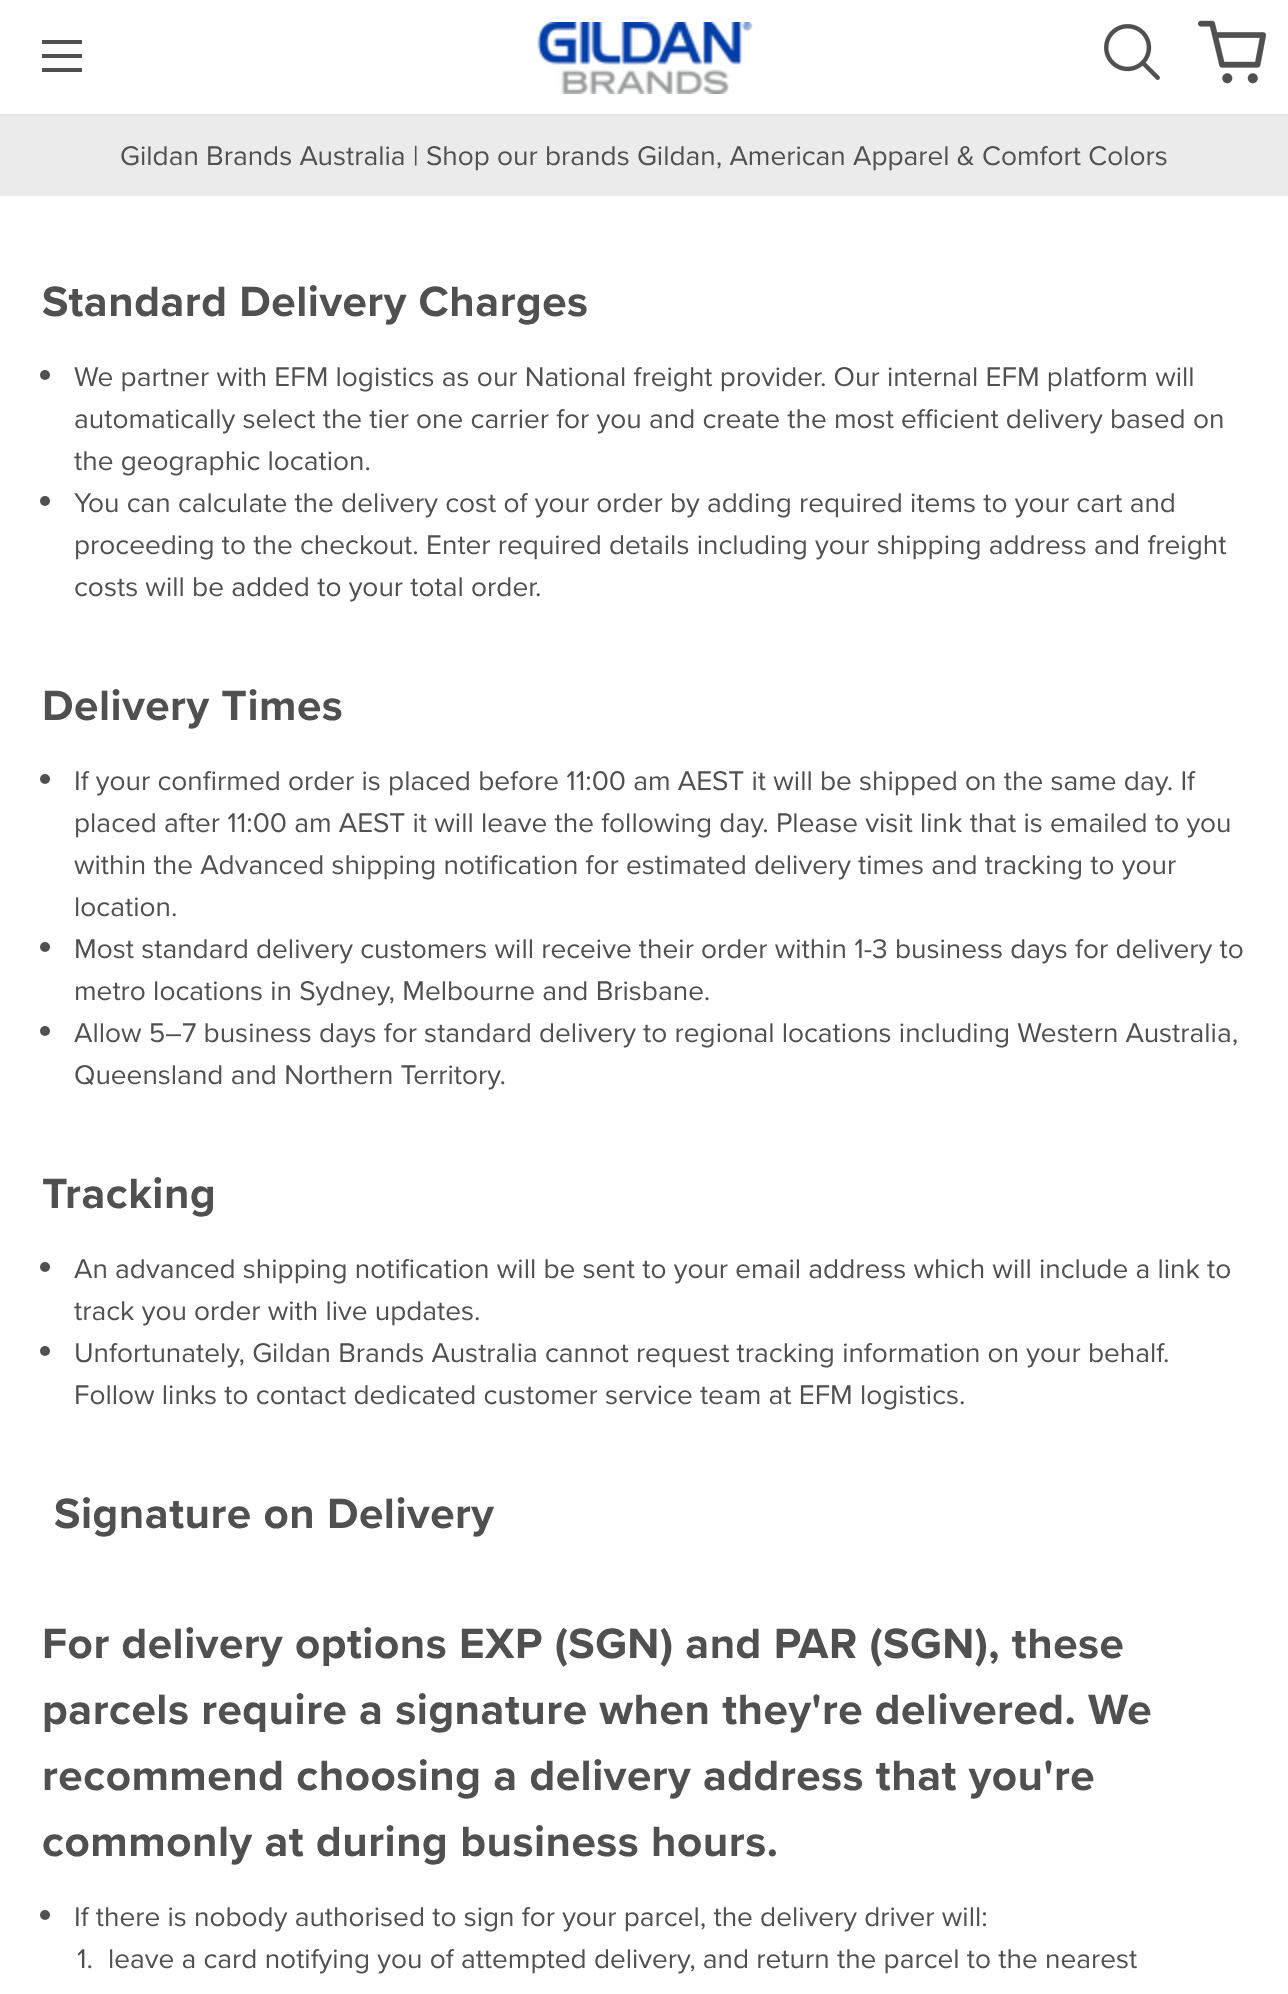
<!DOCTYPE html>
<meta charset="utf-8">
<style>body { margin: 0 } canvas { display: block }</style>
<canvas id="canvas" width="1288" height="1994"></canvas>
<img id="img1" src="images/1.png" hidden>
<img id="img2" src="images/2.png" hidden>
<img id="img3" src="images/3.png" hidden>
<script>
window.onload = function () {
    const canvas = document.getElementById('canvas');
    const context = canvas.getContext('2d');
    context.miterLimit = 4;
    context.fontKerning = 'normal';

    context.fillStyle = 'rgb(255, 255, 255)';
    context.fillRect(0, 0, 1288, 1994);
    context.fillStyle = 'rgb(229, 229, 229)';
    context.fillRect(0, 114, 1288, 2);
    context.fillStyle = 'rgb(80, 80, 80)';
    context.fillRect(42, 54, 40, 4);
    context.fillRect(42, 40, 40, 4);
    context.fillRect(42, 68, 40, 4);
    context.drawImage(document.getElementById('img1'), 537, 22, 216, 72);
    context.drawImage(document.getElementById('img2'), 1104, 24, 56, 56);
    context.drawImage(document.getElementById('img3'), 1198, 20, 68, 64);
    context.fillStyle = 'rgb(235, 235, 235)';
    context.fillRect(0, 116, 1288, 80);
    context.fillStyle = 'rgb(80, 80, 80)';
    context.beginPath();
    context.arc(45, 375, 5, 0, 2 * Math.PI);
    context.fill();
    context.beginPath();
    context.arc(45, 501, 5, 0, 2 * Math.PI);
    context.fill();
    context.beginPath();
    context.arc(45, 779, 5, 0, 2 * Math.PI);
    context.fill();
    context.beginPath();
    context.arc(45, 947, 5, 0, 2 * Math.PI);
    context.fill();
    context.beginPath();
    context.arc(45, 1031, 5, 0, 2 * Math.PI);
    context.fill();
    context.beginPath();
    context.arc(45, 1267, 5, 0, 2 * Math.PI);
    context.fill();
    context.beginPath();
    context.arc(45, 1351, 5, 0, 2 * Math.PI);
    context.fill();
    context.beginPath();
    context.arc(45, 1915, 5, 0, 2 * Math.PI);
    context.fill();
    context.font = '28px Proxima Nova';
    context.fillText('Gildan Brands Australia | Shop our brands Gildan, American Apparel & Comfort Colors', 120, 165);
    context.letterSpacing = '0.5px';
    context.font = 'bold 44px Proxima Nova';
    context.fillText('Standard Delivery Charges', 42, 316);
    context.letterSpacing = '0px';
    context.font = '28px Proxima Nova';
    context.fillText('We partner with EFM logistics as our National freight provider. Our internal EFM platform will', 74, 386);
    context.fillText('automatically select the tier one carrier for you and create the most efficient delivery based on', 74, 428);
    context.fillText('the geographic location.', 74, 470);
    context.fillText('You can calculate the delivery cost of your order by adding required items to your cart and', 74, 512);
    context.fillText('proceeding to the checkout. Enter required details including your shipping address and freight', 74, 554);
    context.fillText('costs will be added to your total order.', 74, 596);
    context.letterSpacing = '0.5px';
    context.font = 'bold 44px Proxima Nova';
    context.fillText('Delivery Times', 42, 720);
    context.letterSpacing = '0px';
    context.font = '28px Proxima Nova';
    context.fillText('If your confirmed order is placed before 11:00 am AEST it will be shipped on the same day. If', 74, 790);
    context.fillText('placed after 11:00 am AEST it will leave the following day. Please visit link that is emailed to you', 74, 832);
    context.fillText('within the Advanced shipping notification for estimated delivery times and tracking to your', 74, 874);
    context.fillText('location.', 74, 916);
    context.fillText('Most standard delivery customers will receive their order within 1-3 business days for delivery to', 74, 958);
    context.fillText('metro locations in Sydney, Melbourne and Brisbane.', 74, 1000);
    context.fillText('Allow 5–7 business days for standard delivery to regional locations including Western Australia,', 74, 1042);
    context.fillText('Queensland and Northern Territory.', 74, 1084);
    context.letterSpacing = '0.5px';
    context.font = 'bold 44px Proxima Nova';
    context.fillText('Tracking', 42, 1208);
    context.letterSpacing = '0px';
    context.font = '28px Proxima Nova';
    context.fillText('An advanced shipping notification will be sent to your email address which will include a link to', 74, 1278);
    context.fillText('track you order with live updates.', 74, 1320);
    context.fillText('Unfortunately, Gildan Brands Australia cannot request tracking information on your behalf.', 74, 1362);
    context.fillText('Follow links to contact dedicated customer service team at EFM logistics.', 74, 1404);
    context.letterSpacing = '0.5px';
    context.font = 'bold 44px Proxima Nova';
    context.fillText('Signature on Delivery', 54, 1528);
    context.fillText('For delivery options EXP (SGN) and PAR (SGN), these', 42, 1658);
    context.fillText('parcels require a signature when they\'re delivered. We', 42, 1724);
    context.fillText('recommend choosing a delivery address that you\'re', 42, 1790);
    context.fillText('commonly at during business hours.', 42, 1856);
    context.letterSpacing = '0px';
    context.font = '28px Proxima Nova';
    context.fillText('If there is nobody authorised to sign for your parcel, the delivery driver will:', 74, 1926);
    context.fillText('1.', 77, 1968);
    context.fillText('leave a card notifying you of attempted delivery, and return the parcel to the nearest', 108, 1968);
};
</script>
